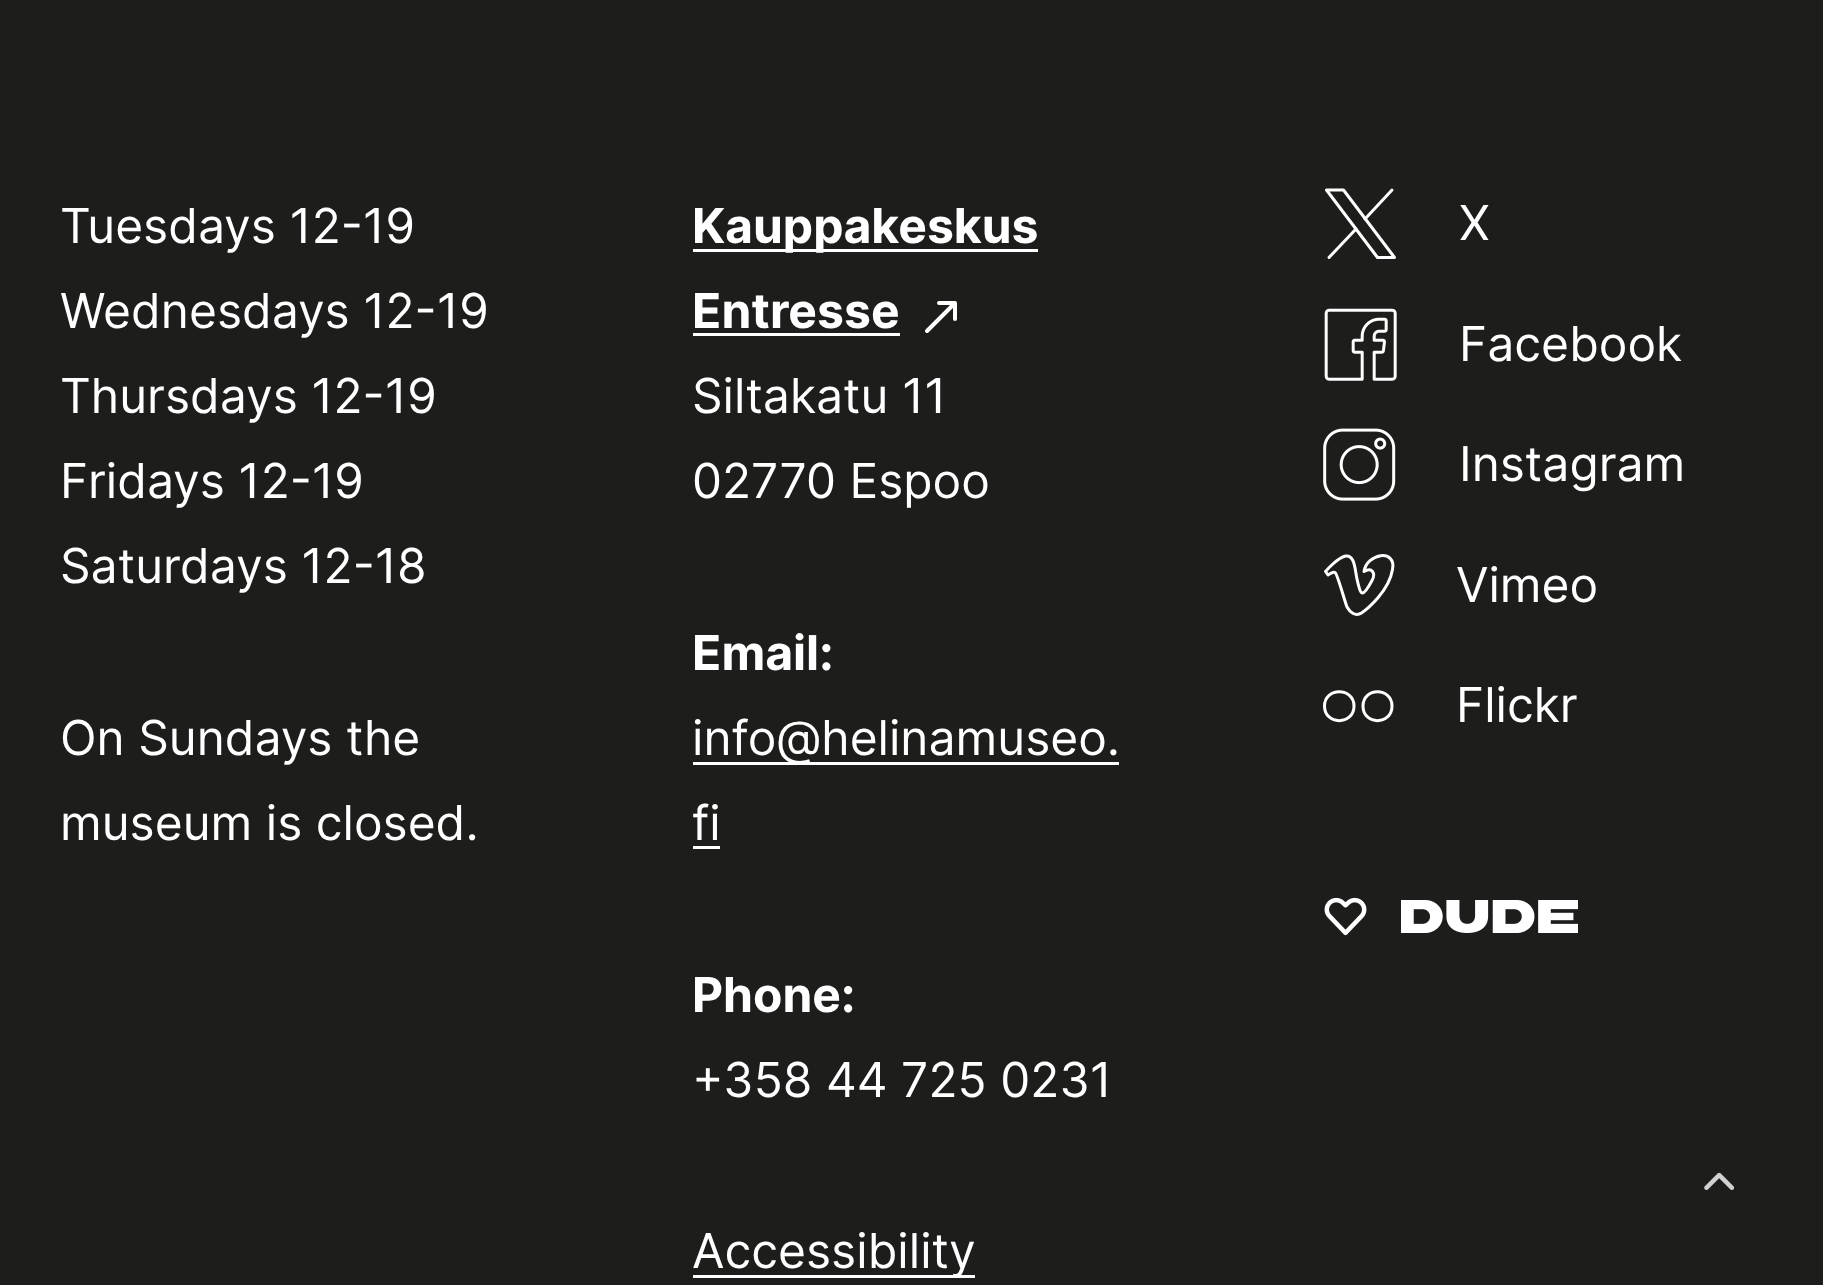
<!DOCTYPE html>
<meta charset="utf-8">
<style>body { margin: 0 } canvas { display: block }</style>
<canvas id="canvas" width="1823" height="1285"></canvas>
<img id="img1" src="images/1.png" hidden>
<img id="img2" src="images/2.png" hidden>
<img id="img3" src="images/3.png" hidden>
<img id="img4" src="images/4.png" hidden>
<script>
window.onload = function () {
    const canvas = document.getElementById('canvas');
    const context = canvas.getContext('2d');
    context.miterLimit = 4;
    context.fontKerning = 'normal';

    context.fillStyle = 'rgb(29, 29, 27)';
    context.fillRect(0, 0, 1823, 1285);
    context.fillStyle = 'rgb(255, 255, 255)';
    context.fillRect(693, 249, 345, 3);
    context.fillRect(693, 333, 207, 3);
    context.beginPath();
    context.moveTo(939, 303);
    context.lineTo(955, 303);
    context.lineTo(955, 319);
    context.moveTo(955, 303);
    context.lineTo(927, 331);
    context.strokeStyle = 'rgb(255, 255, 255)';
    context.lineWidth = 4;
    context.lineCap = 'round';
    context.lineJoin = 'round';
    context.stroke();
    context.fillRect(693, 762, 426, 3);
    context.fillRect(693, 846, 27, 3);
    context.fillRect(693, 1275, 282, 3);
    context.beginPath();
    context.moveTo(1377.5, 257.5);
    context.lineTo(1326.5, 190);
    context.lineTo(1343.5, 190);
    context.lineTo(1394.5, 257.5);
    context.closePath();
    context.lineWidth = 3;
    context.stroke();
    context.beginPath();
    context.moveTo(1392, 190);
    context.lineTo(1365, 219);
    context.stroke();
    context.beginPath();
    context.moveTo(1329, 257.5);
    context.lineTo(1356, 229);
    context.stroke();
    context.drawImage(document.getElementById('img1'), 1324, 308, 73, 73);
    context.drawImage(document.getElementById('img2'), 1323, 428, 73, 73);
    context.beginPath();
    context.moveTo(1325.5, 571.5);
    context.lineTo(1328, 575);
    context.bezierCurveTo(1328, 575, 1334, 570.5, 1335.5, 573);
    context.bezierCurveTo(1337.5, 575, 1345, 602, 1347, 607);
    context.bezierCurveTo(1349.5, 611.5, 1355, 617, 1361.5, 613);
    context.bezierCurveTo(1367.5, 609, 1389, 591, 1392.5, 569.5);
    context.bezierCurveTo(1396.5, 548.5, 1367, 553, 1364, 571.5);
    context.bezierCurveTo(1372, 566.5, 1376, 573.5, 1372, 580.5);
    context.bezierCurveTo(1368, 588, 1364.5, 593, 1362.5, 593);
    context.bezierCurveTo(1360.5, 593, 1359, 588, 1357, 579);
    context.bezierCurveTo(1355, 570.5, 1355, 554.5, 1345.5, 556);
    context.bezierCurveTo(1337, 558, 1325.5, 571.5, 1325.5, 571.5);
    context.closePath();
    context.stroke();
    context.beginPath();
    context.moveTo(1363, 706);
    context.bezierCurveTo(1363, 725.5, 1392, 725.5, 1392, 706);
    context.bezierCurveTo(1392, 687, 1363, 687, 1363, 706);
    context.closePath();
    context.moveTo(1324.5, 706);
    context.bezierCurveTo(1324.5, 725.5, 1354, 725.5, 1354, 706);
    context.bezierCurveTo(1354, 687, 1324.5, 687, 1324.5, 706);
    context.closePath();
    context.stroke();
    context.drawImage(document.getElementById('img3'), 1324, 897, 254, 39);
    context.drawImage(document.getElementById('img4'), 1704, 1172, 31, 18);
    context.font = '48px Inter';
    context.fillText('Tuesdays 12-19', 60, 243);
    context.fillText('Wednesdays 12-19', 60, 328);
    context.fillText('Thursdays 12-19', 60, 413);
    context.fillText('Fridays 12-19', 60, 498);
    context.fillText('Saturdays 12-18', 60, 583);
    context.fillText('On Sundays the', 60, 755);
    context.fillText('museum is closed.', 60, 840);
    context.font = 'bold 48px Inter';
    context.fillText('Kauppakeskus', 692, 243);
    context.fillText('Entresse', 692, 328);
    context.font = '48px Inter';
    context.fillText('Siltakatu 11', 692, 413);
    context.fillText('02770 Espoo', 692, 498);
    context.font = 'bold 48px Inter';
    context.fillText('Email:', 692, 670);
    context.font = '48px Inter';
    context.fillText('info@helinamuseo.', 692, 755);
    context.fillText('fi', 692, 840);
    context.font = 'bold 48px Inter';
    context.fillText('Phone:', 692, 1012);
    context.font = '48px Inter';
    context.fillText('+358 44 725 0231', 692, 1097);
    context.fillText('Accessibility', 692, 1268);
    context.fillText('X', 1459, 240);
    context.fillText('Facebook', 1459, 361);
    context.fillText('Instagram', 1459, 481);
    context.fillText('Vimeo', 1456, 602);
    context.fillText('Flickr', 1456, 722);
};
</script>
